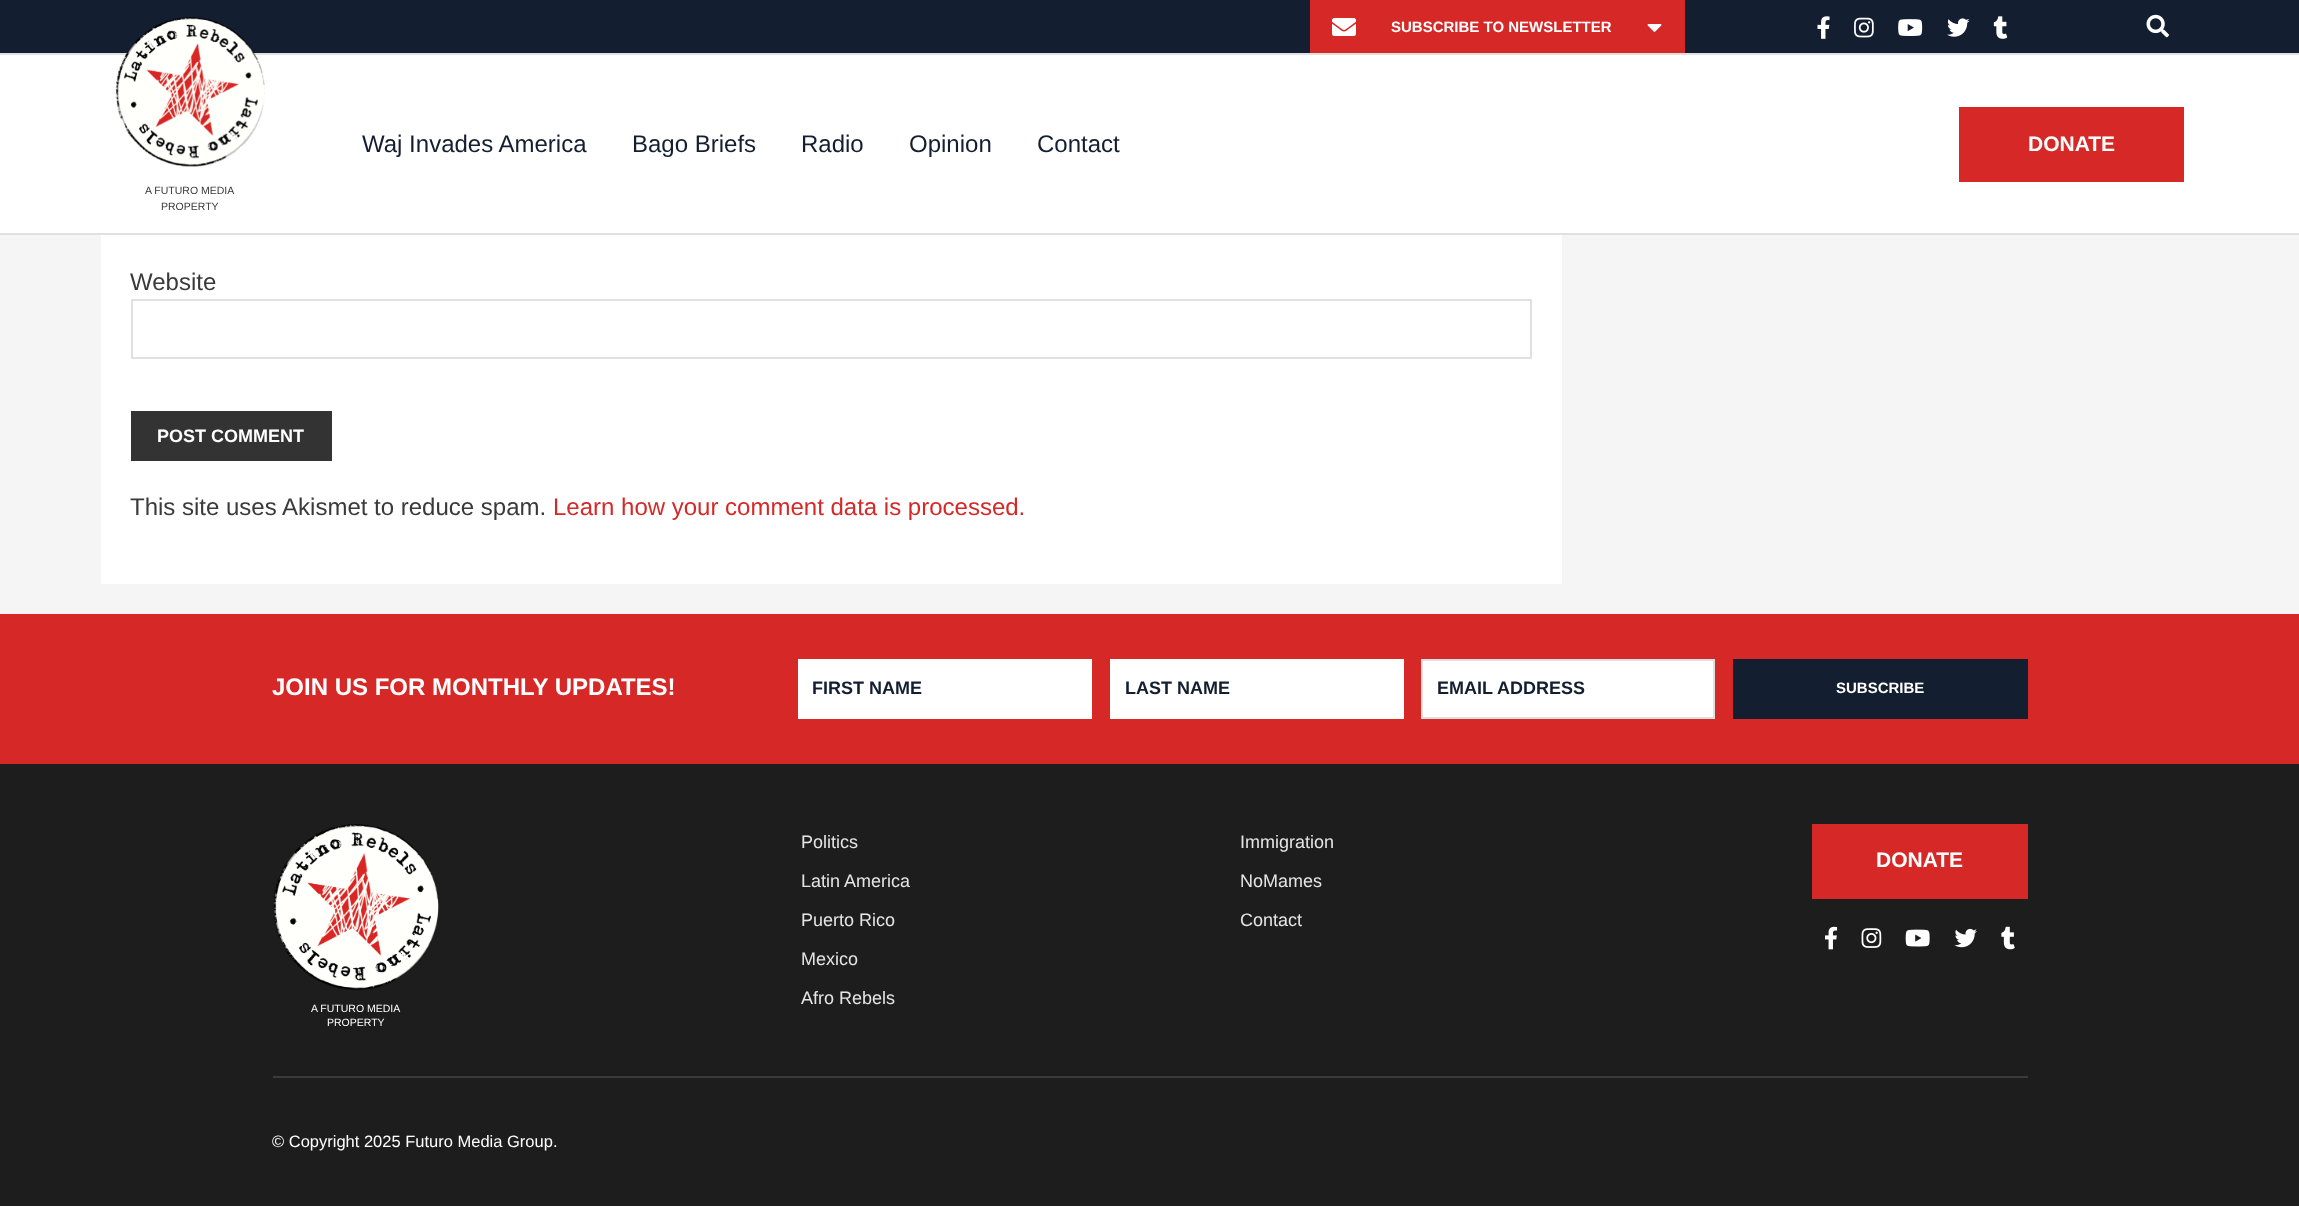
<!DOCTYPE html>
<meta charset="utf-8">
<style>body { margin: 0 } canvas { display: block }</style>
<canvas id="canvas" width="2299" height="1216"></canvas>
<img id="img1" src="images/1.png" hidden>
<img id="img2" src="images/2.png" hidden>
<img id="img3" src="images/3.png" hidden>
<img id="img4" src="images/4.png" hidden>
<img id="img5" src="images/5.png" hidden>
<img id="img6" src="images/6.png" hidden>
<img id="img7" src="images/7.png" hidden>
<img id="img8" src="images/8.png" hidden>
<img id="img9" src="images/9.png" hidden>
<img id="img10" src="images/10.png" hidden>
<img id="img11" src="images/11.png" hidden>
<img id="img12" src="images/12.png" hidden>
<img id="img13" src="images/13.png" hidden>
<img id="img14" src="images/14.png" hidden>
<img id="img15" src="images/15.png" hidden>
<script>
window.onload = function () {
    const canvas = document.getElementById('canvas');
    const context = canvas.getContext('2d');
    context.miterLimit = 4;
    context.fontKerning = 'normal';

    context.fillStyle = 'rgb(245, 245, 245)';
    context.fillRect(0, 0, 2299, 1216);
    context.fillStyle = 'rgb(255, 255, 255)';
    context.fillRect(0, 55, 2299, 178);
    context.fillStyle = 'rgb(224, 224, 224)';
    context.fillRect(0, 233, 2299, 2);
    context.fillStyle = 'rgb(19, 30, 48)';
    context.fillRect(0, 0, 2299, 53);
    context.fillStyle = 'rgb(214, 40, 39)';
    context.fillRect(1310, 0, 375, 53);
    context.drawImage(document.getElementById('img1'), 1332, 18, 24, 18);
    context.drawImage(document.getElementById('img2'), 1647, 24, 15, 8);
    context.drawImage(document.getElementById('img3'), 1817, 16, 13, 23);
    context.drawImage(document.getElementById('img4'), 1854, 17, 20, 21);
    context.drawImage(document.getElementById('img5'), 1898, 19, 25, 17);
    context.drawImage(document.getElementById('img6'), 1947, 18, 23, 19);
    context.drawImage(document.getElementById('img7'), 1993, 16, 15, 23);
    context.drawImage(document.getElementById('img8'), 2146, 14, 23, 24);
    context.fillStyle = 'rgb(224, 224, 224)';
    context.fillRect(0, 53, 2299, 2);
    context.fillStyle = 'rgb(214, 40, 39)';
    context.fillRect(1959, 107, 225, 75);
    context.drawImage(document.getElementById('img9'), 115, 17, 150, 150);
    context.fillStyle = 'rgb(255, 255, 255)';
    context.fillRect(101, 235, 1461, 349);
    context.strokeStyle = 'rgb(224, 224, 224)';
    context.lineWidth = 2;
    context.strokeRect(132, 300, 1399, 58);
    context.fillStyle = 'rgb(51, 51, 51)';
    context.fillRect(131, 411, 201, 50);
    context.fillStyle = 'rgb(214, 40, 39)';
    context.fillRect(0, 614, 2299, 150);
    context.fillStyle = 'rgb(255, 255, 255)';
    context.fillRect(798, 659, 294, 60);
    context.fillRect(1110, 659, 294, 60);
    context.beginPath();
    context.rect(1422, 660, 292, 58);
    context.fill();
    context.stroke();
    context.fillStyle = 'rgb(19, 30, 48)';
    context.fillRect(1733, 659, 295, 60);
    context.fillStyle = 'rgb(29, 29, 29)';
    context.fillRect(0, 764, 2299, 442);
    context.fillStyle = 'rgb(58, 58, 58)';
    context.fillRect(273, 1076, 1755, 2);
    context.fillStyle = 'rgb(214, 40, 39)';
    context.fillRect(1812, 824, 216, 75);
    context.drawImage(document.getElementById('img10'), 1825, 926, 13, 24);
    context.drawImage(document.getElementById('img11'), 1861, 928, 21, 20);
    context.drawImage(document.getElementById('img12'), 1905, 929, 25, 18);
    context.drawImage(document.getElementById('img13'), 1954, 928, 23, 20);
    context.drawImage(document.getElementById('img14'), 2001, 926, 14, 24);
    context.drawImage(document.getElementById('img15'), 273, 824, 166, 166);
    context.fillStyle = 'rgb(255, 255, 255)';
    context.fillRect(0, 1206, 2299, 10);
    context.font = 'bold 15px Liberation Sans';
    context.fillText('SUBSCRIBE TO NEWSLETTER', 1391, 32);
    context.font = '24px Liberation Sans';
    context.fillStyle = 'rgb(19, 30, 48)';
    context.fillText('Waj Invades America', 362, 152);
    context.fillText('Bago Briefs', 632, 152);
    context.fillText('Radio', 801, 152);
    context.fillText('Opinion', 909, 152);
    context.fillText('Contact', 1037, 152);
    context.font = 'bold 21px Liberation Sans';
    context.fillStyle = 'rgb(255, 255, 255)';
    context.fillText('DONATE', 2028, 151);
    context.font = '10.5px Liberation Sans';
    context.fillStyle = 'rgb(58, 58, 58)';
    context.fillText('A FUTURO MEDIA', 145, 194);
    context.fillText('PROPERTY', 161, 210);
    context.font = '24px Liberation Sans';
    context.fillText('Website', 130, 290);
    context.font = 'bold 18px Liberation Sans';
    context.fillStyle = 'rgb(255, 255, 255)';
    context.fillText('POST COMMENT', 157, 442);
    context.font = '24px Liberation Sans';
    context.fillStyle = 'rgb(58, 58, 58)';
    context.fillText('This site uses Akismet to reduce spam.', 130, 515);
    context.fillStyle = 'rgb(214, 40, 39)';
    context.fillText('Learn how your comment data is processed.', 553, 515);
    context.font = 'bold 24px Liberation Sans';
    context.fillStyle = 'rgb(255, 255, 255)';
    context.fillText('JOIN US FOR MONTHLY UPDATES!', 272, 695);
    context.font = 'bold 18px Liberation Sans';
    context.fillStyle = 'rgb(19, 30, 48)';
    context.fillText('FIRST NAME', 812, 694);
    context.fillText('LAST NAME', 1125, 694);
    context.fillText('EMAIL ADDRESS', 1437, 694);
    context.font = 'bold 15px Liberation Sans';
    context.fillStyle = 'rgb(255, 255, 255)';
    context.fillText('SUBSCRIBE', 1836, 693);
    context.font = '18px Liberation Sans';
    context.fillStyle = 'rgb(229, 229, 229)';
    context.fillText('Politics', 801, 848);
    context.fillText('Latin America', 801, 887);
    context.fillText('Puerto Rico', 801, 926);
    context.fillText('Mexico', 801, 965);
    context.fillText('Afro Rebels', 801, 1004);
    context.fillText('Immigration', 1240, 848);
    context.fillText('NoMames', 1240, 887);
    context.fillText('Contact', 1240, 926);
    context.font = 'bold 21px Liberation Sans';
    context.fillStyle = 'rgb(255, 255, 255)';
    context.fillText('DONATE', 1876, 867);
    context.font = '10.5px Liberation Sans';
    context.fillText('A FUTURO MEDIA', 311, 1012);
    context.fillText('PROPERTY', 327, 1026);
    context.font = '16.5px Liberation Sans';
    context.fillText('© Copyright 2025 Futuro Media Group.', 272, 1147);
};
</script>
